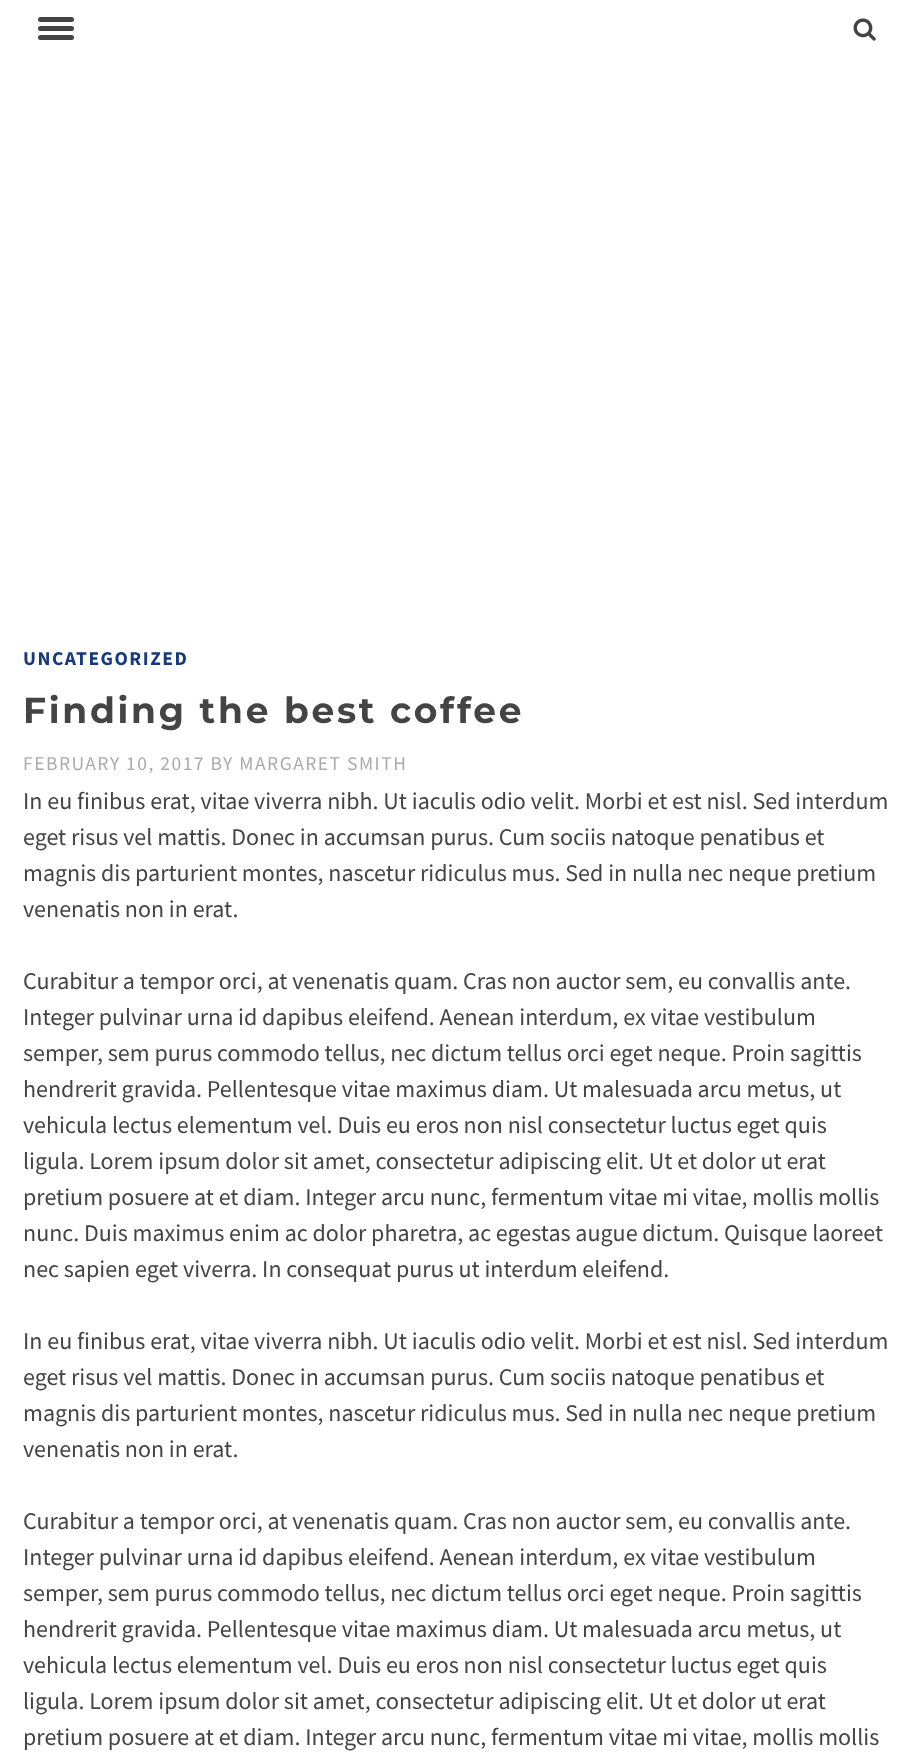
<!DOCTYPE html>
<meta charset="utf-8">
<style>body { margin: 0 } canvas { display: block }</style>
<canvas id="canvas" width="913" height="1763"></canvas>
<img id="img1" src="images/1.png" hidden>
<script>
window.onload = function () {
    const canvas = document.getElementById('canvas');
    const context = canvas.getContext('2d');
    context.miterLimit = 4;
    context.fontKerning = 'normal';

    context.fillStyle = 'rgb(255, 255, 255)';
    context.fillRect(0, 0, 913, 1763);
    context.fillStyle = 'rgb(68, 68, 68)';
    context.beginPath();
    context.roundRect(38, 17, 36, 5, 2.5);
    context.fill();
    context.beginPath();
    context.roundRect(38, 26, 36, 5, 2.5);
    context.fill();
    context.beginPath();
    context.roundRect(38, 35, 36, 5, 2.5);
    context.fill();
    context.drawImage(document.getElementById('img1'), 853, 18, 23, 23);
    context.letterSpacing = '1.5px';
    context.font = 'bold 19.5px Source Sans Pro';
    context.fillStyle = 'rgb(21, 58, 125)';
    context.fillText('UNCATEGORIZED', 23, 665);
    context.letterSpacing = '2.7px';
    context.font = 'bold 36px Montserrat';
    context.fillStyle = 'rgb(68, 68, 68)';
    context.fillText('Finding the best coffee', 23, 723);
    context.letterSpacing = '1.5px';
    context.font = '19.5px Source Sans Pro';
    context.fillStyle = 'rgb(170, 170, 170)';
    context.fillText('FEBRUARY 10, 2017 BY MARGARET SMITH', 23, 770);
    context.letterSpacing = '0px';
    context.font = '24px Source Sans Pro';
    context.fillStyle = 'rgb(68, 68, 68)';
    context.fillText('In eu finibus erat, vitae viverra nibh. Ut iaculis odio velit. Morbi et est nisl. Sed interdum', 23, 809);
    context.fillText('eget risus vel mattis. Donec in accumsan purus. Cum sociis natoque penatibus et', 23, 845);
    context.fillText('magnis dis parturient montes, nascetur ridiculus mus. Sed in nulla nec neque pretium', 23, 881);
    context.fillText('venenatis non in erat.', 23, 917);
    context.fillText('Curabitur a tempor orci, at venenatis quam. Cras non auctor sem, eu convallis ante.', 23, 989);
    context.fillText('Integer pulvinar urna id dapibus eleifend. Aenean interdum, ex vitae vestibulum', 23, 1025);
    context.fillText('semper, sem purus commodo tellus, nec dictum tellus orci eget neque. Proin sagittis', 23, 1061);
    context.fillText('hendrerit gravida. Pellentesque vitae maximus diam. Ut malesuada arcu metus, ut', 23, 1097);
    context.fillText('vehicula lectus elementum vel. Duis eu eros non nisl consectetur luctus eget quis', 23, 1133);
    context.fillText('ligula. Lorem ipsum dolor sit amet, consectetur adipiscing elit. Ut et dolor ut erat', 23, 1169);
    context.fillText('pretium posuere at et diam. Integer arcu nunc, fermentum vitae mi vitae, mollis mollis', 23, 1205);
    context.fillText('nunc. Duis maximus enim ac dolor pharetra, ac egestas augue dictum. Quisque laoreet', 23, 1241);
    context.fillText('nec sapien eget viverra. In consequat purus ut interdum eleifend.', 23, 1277);
    context.fillText('In eu finibus erat, vitae viverra nibh. Ut iaculis odio velit. Morbi et est nisl. Sed interdum', 23, 1349);
    context.fillText('eget risus vel mattis. Donec in accumsan purus. Cum sociis natoque penatibus et', 23, 1385);
    context.fillText('magnis dis parturient montes, nascetur ridiculus mus. Sed in nulla nec neque pretium', 23, 1421);
    context.fillText('venenatis non in erat.', 23, 1457);
    context.fillText('Curabitur a tempor orci, at venenatis quam. Cras non auctor sem, eu convallis ante.', 23, 1529);
    context.fillText('Integer pulvinar urna id dapibus eleifend. Aenean interdum, ex vitae vestibulum', 23, 1565);
    context.fillText('semper, sem purus commodo tellus, nec dictum tellus orci eget neque. Proin sagittis', 23, 1601);
    context.fillText('hendrerit gravida. Pellentesque vitae maximus diam. Ut malesuada arcu metus, ut', 23, 1637);
    context.fillText('vehicula lectus elementum vel. Duis eu eros non nisl consectetur luctus eget quis', 23, 1673);
    context.fillText('ligula. Lorem ipsum dolor sit amet, consectetur adipiscing elit. Ut et dolor ut erat', 23, 1709);
    context.fillText('pretium posuere at et diam. Integer arcu nunc, fermentum vitae mi vitae, mollis mollis', 23, 1745);
};
</script>
